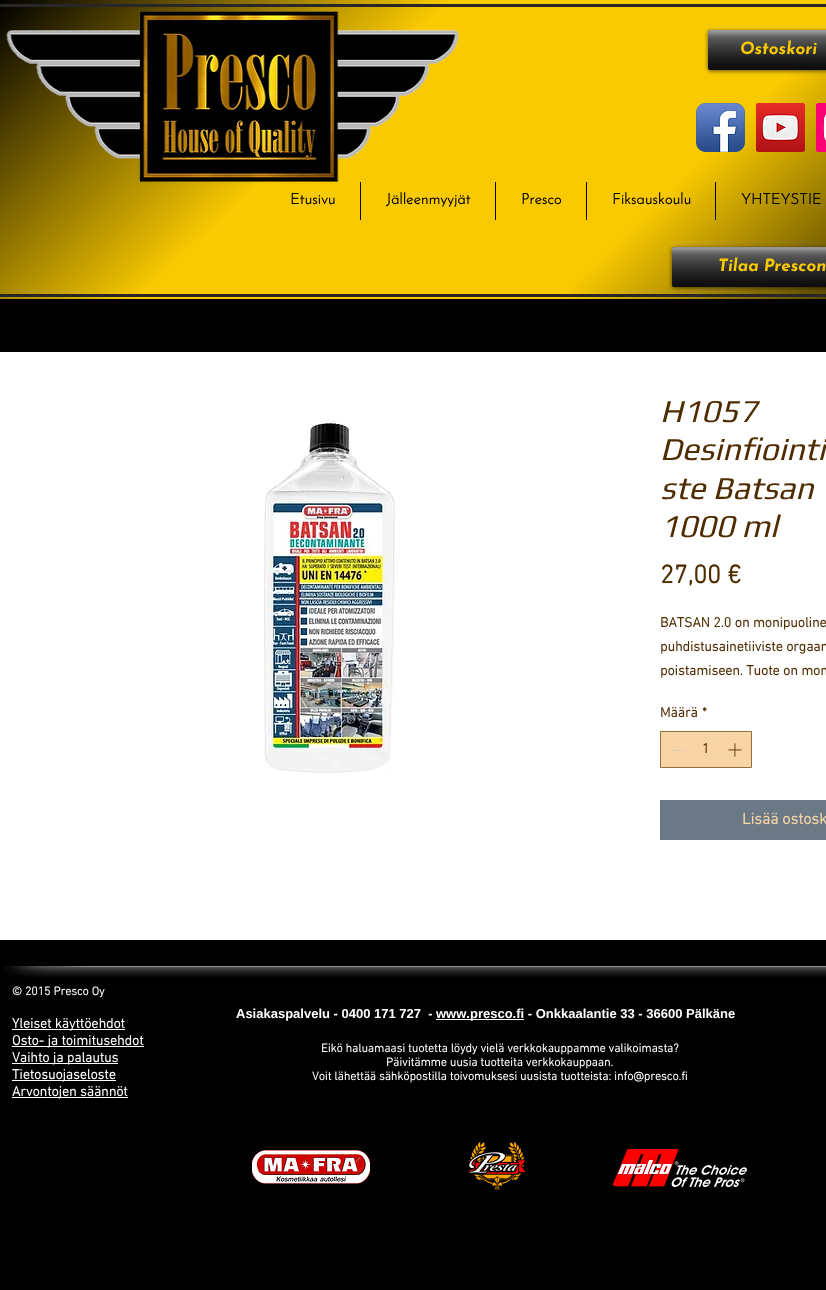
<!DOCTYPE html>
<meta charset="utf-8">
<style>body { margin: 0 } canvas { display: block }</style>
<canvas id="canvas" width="826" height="1290"></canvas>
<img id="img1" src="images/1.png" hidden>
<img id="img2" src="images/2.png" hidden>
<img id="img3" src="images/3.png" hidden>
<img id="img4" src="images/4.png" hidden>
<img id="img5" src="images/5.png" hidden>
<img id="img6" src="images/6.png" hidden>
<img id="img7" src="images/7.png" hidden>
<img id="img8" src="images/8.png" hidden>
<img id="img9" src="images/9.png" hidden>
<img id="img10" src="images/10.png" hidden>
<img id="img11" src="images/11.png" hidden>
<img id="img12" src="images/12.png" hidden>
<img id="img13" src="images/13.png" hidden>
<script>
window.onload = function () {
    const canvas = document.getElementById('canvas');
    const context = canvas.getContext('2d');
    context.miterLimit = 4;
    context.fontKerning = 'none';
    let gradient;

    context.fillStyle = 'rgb(0, 0, 0)';
    context.fillRect(0, 0, 826, 1290);
    gradient = context.createLinearGradient(179, -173, 801, 472);
    gradient.addColorStop(0, 'rgb(0, 0, 0)');
    gradient.addColorStop(0.35, 'rgb(250, 202, 0)');
    gradient.addColorStop(0.67, 'rgb(250, 202, 0)');
    gradient.addColorStop(1, 'rgb(0, 0, 0)');
    context.fillStyle = gradient;
    context.fillRect(0, 0, 826, 299);
    context.fillStyle = 'rgb(40, 38, 38)';
    context.fillRect(0, 4, 826, 3);
    context.fillStyle = 'rgb(0, 0, 0)';
    context.fillRect(360, 182, 1, 38);
    context.drawImage(document.getElementById('img1'), 6, 11, 454, 173);
    context.fillStyle = 'rgba(0, 0, 0, 0.6)';
    context.filter = 'blur(2px)';
    context.beginPath();
    context.roundRect(708, 31, 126, 40, 2);
    context.fill();
    context.filter = 'none';
    context.fillStyle = 'rgb(0, 0, 0)';
    context.beginPath();
    context.roundRect(708, 30, 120, 40, 2);
    context.fill();
    context.drawImage(document.getElementById('img2'), 708, 30, 118, 40);
    context.drawImage(document.getElementById('img3'), 696, 103, 49, 49);
    context.drawImage(document.getElementById('img4'), 756, 103, 49, 49);
    context.drawImage(document.getElementById('img5'), 816, 103, 10, 49);
    context.fillRect(495, 182, 1, 38);
    context.fillRect(586, 182, 1, 38);
    context.fillRect(715, 182, 1, 38);
    context.fillStyle = 'rgba(0, 0, 0, 0.6)';
    context.filter = 'blur(2px)';
    context.beginPath();
    context.roundRect(672, 248, 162, 40, 2);
    context.fill();
    context.filter = 'none';
    context.fillStyle = 'rgb(0, 0, 0)';
    context.beginPath();
    context.roundRect(672, 247, 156, 40, 2);
    context.fill();
    context.drawImage(document.getElementById('img6'), 672, 247, 154, 40);
    context.fillStyle = 'rgb(40, 38, 38)';
    context.fillRect(0, 294, 826, 3);
    context.fillStyle = 'rgb(255, 255, 255)';
    context.fillRect(0, 352, 826, 588);
    context.drawImage(document.getElementById('img7'), 263, 420, 132, 353);
    context.fillStyle = 'rgb(249, 213, 166)';
    context.beginPath();
    context.rect(660.5, 731.5, 91, 36);
    context.fill();
    context.strokeStyle = 'rgb(147, 112, 66)';
    context.stroke();
    context.fillStyle = 'rgb(224, 206, 183)';
    context.fillRect(672, 750, 13, 1);
    context.drawImage(document.getElementById('img8'), 728, 743, 14, 14);
    context.fillStyle = 'rgb(107, 121, 134)';
    context.fillRect(660, 800, 166, 40);
    context.drawImage(document.getElementById('img9'), 3, 966, 97, 11);
    context.drawImage(document.getElementById('img10'), 100, 966, 726, 11);
    context.fillStyle = 'rgb(255, 255, 255)';
    context.fillRect(436, 1019, 88, 1);
    context.fillRect(12, 1029, 113, 1);
    context.fillRect(12, 1046, 132, 1);
    context.fillRect(12, 1063, 106, 1);
    context.fillRect(12, 1080, 104, 1);
    context.fillRect(12, 1097, 116, 1);
    context.drawImage(document.getElementById('img11'), 252, 1150, 118, 34);
    context.drawImage(document.getElementById('img12'), 468, 1142, 58, 48);
    context.drawImage(document.getElementById('img13'), 612, 1149, 135, 38);
    context.font = 'italic 100 17px Josefin Sans';
    context.fillStyle = 'rgb(250, 202, 0)';
    context.fillText('Ostoskori', 740, 54);
    context.font = 'bold 15px Josefin Sans';
    context.fillStyle = 'rgb(0, 0, 0)';
    context.fillText('Etusivu', 290, 204);
    context.fillText('Jälleenmyyjät', 386, 204);
    context.fillText('Presco', 521, 204);
    context.fillText('Fiksauskoulu', 612, 204);
    context.fillText('YHTEYSTIE', 741, 204);
    context.font = 'italic 100 17px Josefin Sans';
    context.fillStyle = 'rgb(250, 202, 0)';
    context.fillText('Tilaa Prescon', 718, 271);
    context.font = 'italic 32px Play';
    context.fillStyle = 'rgb(79, 44, 0)';
    context.fillText('H1057', 660, 422);
    context.fillText('Desinfiointi', 660, 460);
    context.fillText('ste Batsan', 660, 499);
    context.fillText('1000 ml', 660, 537);
    context.font = 'bold 26px "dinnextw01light"';
    context.fillText('27,00 €', 660, 583);
    context.font = 'bold 14px "dinnextw01light"';
    context.fillText('BATSAN 2.0 on monipuoline', 660, 627);
    context.fillText('puhdistusainetiiviste orgaan', 660, 651);
    context.fillText('poistamiseen. Tuote on mon', 660, 675);
    context.fillText('Määrä', 660, 717);
    context.fillText('*', 702, 717);
    context.fillText('1', 702, 753);
    context.font = 'bold 16px "dinnextw01light"';
    context.fillStyle = 'rgb(249, 213, 166)';
    context.fillText('Lisää ostosk', 742, 824);
    context.font = 'bold 12px "dinnextw01light"';
    context.fillStyle = 'rgb(255, 255, 255)';
    context.fillText('© 2015 Presco Oy', 12, 995);
    context.font = 'bold 13px Liberation Sans';
    context.fillText('Asiakaspalvelu - 0400 171 727  -', 236, 1018);
    context.fillText('www.presco.fi - Onkkaalantie 33 - 36600 Pälkäne', 436, 1018);
    context.font = 'bold 14px "dinnextw01light"';
    context.fillText('Yleiset käyttöehdot', 12, 1028);
    context.fillText('Osto- ja toimitusehdot', 12, 1045);
    context.fillText('Vaihto ja palautus', 12, 1062);
    context.fillText('Tietosuojaseloste', 12, 1079);
    context.fillText('Arvontojen säännöt', 12, 1096);
    context.font = 'bold 12px "dinnextw01light"';
    context.fillText('Eikö haluamaasi tuotetta löydy vielä verkkokauppamme valikoimasta?', 321, 1052);
    context.fillText('Päivitämme uusia tuotteita verkkokauppaan.', 386, 1066);
    context.fillText('Voit lähettää sähköpostilla toivomuksesi uusista tuotteista: info@presco.fi', 312, 1080);
};
</script>
